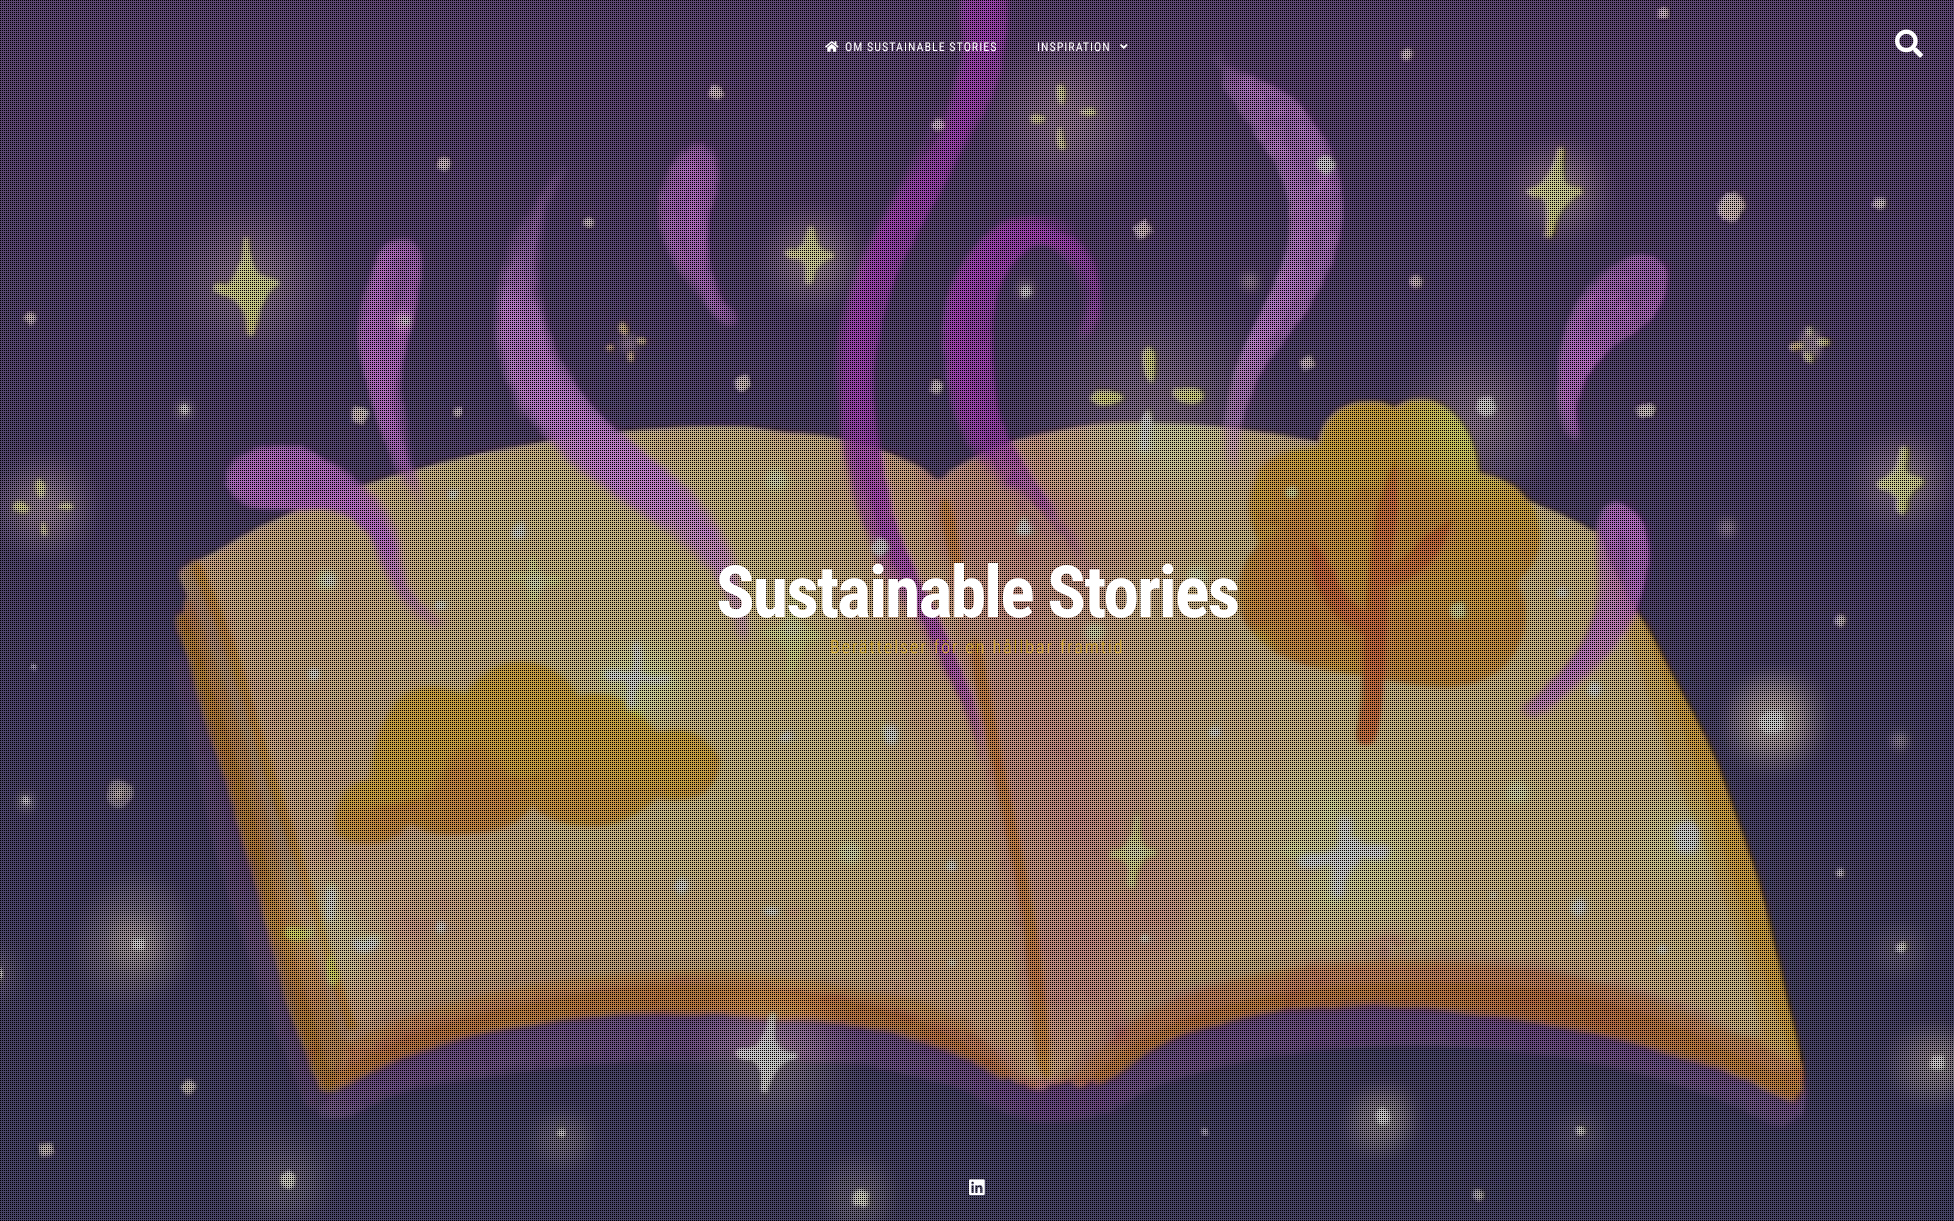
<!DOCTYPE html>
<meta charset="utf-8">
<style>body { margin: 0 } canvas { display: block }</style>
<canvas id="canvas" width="1954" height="1221"></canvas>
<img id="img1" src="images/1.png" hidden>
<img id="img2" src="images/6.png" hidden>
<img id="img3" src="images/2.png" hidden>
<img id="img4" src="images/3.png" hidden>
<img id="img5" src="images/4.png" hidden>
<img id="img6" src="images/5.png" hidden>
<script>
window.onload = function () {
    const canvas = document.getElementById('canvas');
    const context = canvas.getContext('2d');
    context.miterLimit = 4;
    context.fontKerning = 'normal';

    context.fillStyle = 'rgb(255, 255, 255)';
    context.fillRect(0, 0, 1954, 1221);
    context.drawImage(document.getElementById('img1'), 0, 0, 1954, 1221);
    context.drawImage(document.getElementById('img2'), 0, 0, 1953, 1221);
    context.drawImage(document.getElementById('img3'), 1895, 29, 28, 29);
    context.drawImage(document.getElementById('img4'), 969, 1179, 16, 17);
    context.drawImage(document.getElementById('img5'), 825, 41, 14, 11);
    context.drawImage(document.getElementById('img6'), 1120, 44, 8, 5);
    context.letterSpacing = '1px';
    context.font = '12px Roboto Condensed';
    context.fillText('OM SUSTAINABLE STORIES', 845, 51);
    context.fillText('INSPIRATION', 1037, 51);
    context.letterSpacing = '-2px';
    context.font = 'bold 72px Roboto Condensed';
    context.fillText('Sustainable Stories', 716, 617);
    context.letterSpacing = '2px';
    context.font = '300 18px Roboto Condensed';
    context.fillStyle = 'rgb(206, 165, 37)';
    context.fillText('Berättelser för en hållbar framtid', 830, 653);
};
</script>
